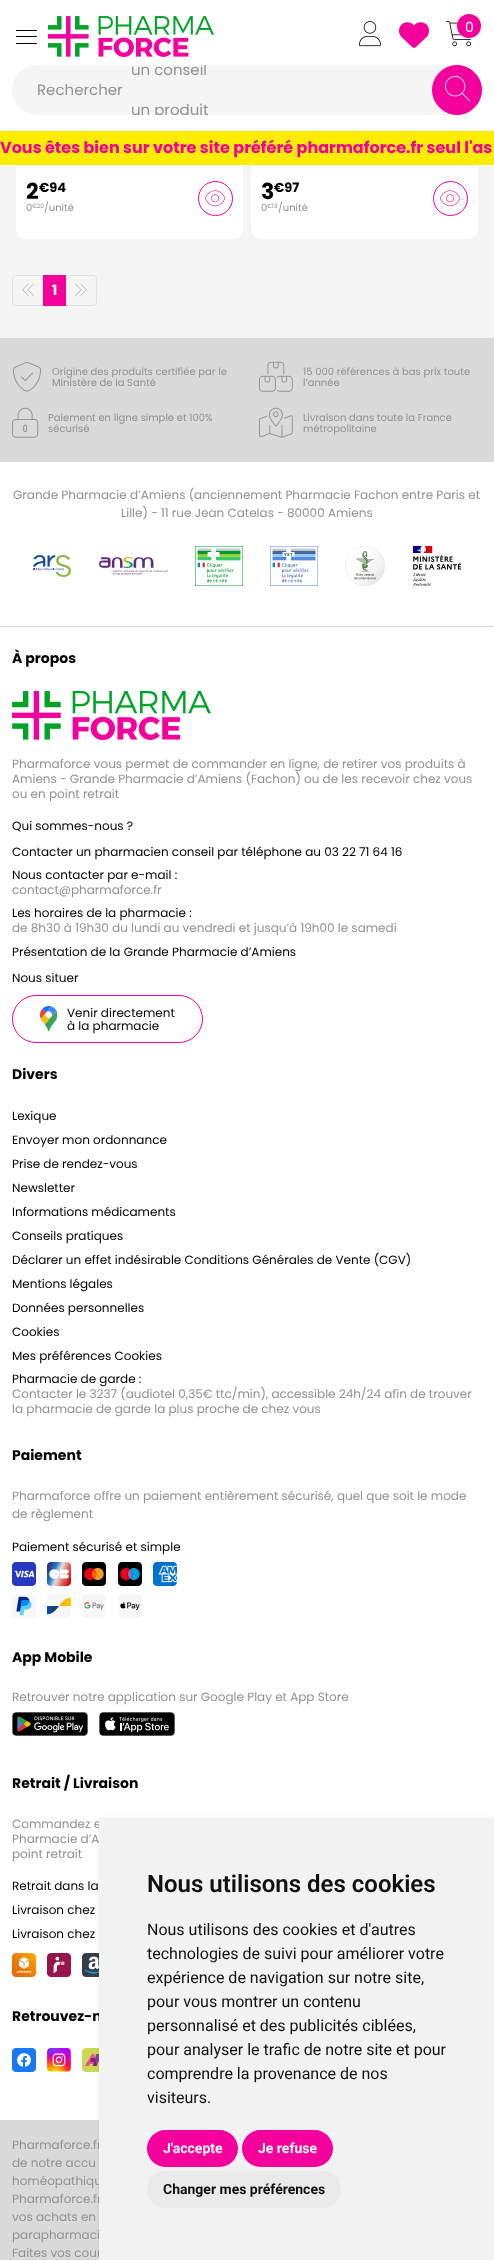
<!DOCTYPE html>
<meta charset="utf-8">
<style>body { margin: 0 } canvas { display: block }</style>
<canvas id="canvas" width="494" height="2260"></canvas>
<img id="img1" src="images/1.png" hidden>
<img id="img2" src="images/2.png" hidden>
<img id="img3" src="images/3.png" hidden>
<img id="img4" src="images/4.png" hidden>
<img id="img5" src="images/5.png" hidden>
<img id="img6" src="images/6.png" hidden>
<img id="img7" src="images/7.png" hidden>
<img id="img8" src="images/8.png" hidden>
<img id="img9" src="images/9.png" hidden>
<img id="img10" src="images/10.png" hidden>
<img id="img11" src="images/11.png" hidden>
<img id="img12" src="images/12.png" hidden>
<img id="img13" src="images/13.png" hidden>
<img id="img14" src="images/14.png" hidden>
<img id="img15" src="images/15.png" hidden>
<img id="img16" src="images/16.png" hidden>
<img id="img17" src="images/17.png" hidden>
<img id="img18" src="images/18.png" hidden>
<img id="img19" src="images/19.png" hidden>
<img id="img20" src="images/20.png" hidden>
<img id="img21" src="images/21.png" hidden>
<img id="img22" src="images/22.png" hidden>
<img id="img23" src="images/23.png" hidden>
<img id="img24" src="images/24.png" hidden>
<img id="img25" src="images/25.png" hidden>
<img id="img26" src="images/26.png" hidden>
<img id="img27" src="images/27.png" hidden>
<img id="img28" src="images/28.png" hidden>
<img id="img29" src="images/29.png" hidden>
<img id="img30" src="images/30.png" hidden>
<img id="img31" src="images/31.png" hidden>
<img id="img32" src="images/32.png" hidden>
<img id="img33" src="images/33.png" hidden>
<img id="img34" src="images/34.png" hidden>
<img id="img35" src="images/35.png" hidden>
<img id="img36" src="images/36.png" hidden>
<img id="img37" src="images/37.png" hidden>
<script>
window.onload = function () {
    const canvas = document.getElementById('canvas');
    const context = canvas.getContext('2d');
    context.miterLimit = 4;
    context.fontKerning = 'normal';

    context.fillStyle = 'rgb(255, 255, 255)';
    context.fillRect(0, 0, 494, 2260);
    context.fillStyle = 'rgb(245, 245, 245)';
    context.fillRect(0, 165, 494, 173);
    context.fillStyle = 'rgb(255, 255, 255)';
    context.beginPath();
    context.roundRect(16, -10, 227, 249, 10);
    context.fill();
    context.fillStyle = 'rgb(0, 0, 0)';
    context.beginPath();
    context.roundRect(16, 30, 21, 1, 0.5);
    context.fill();
    context.beginPath();
    context.roundRect(16, 36, 21, 1, 0.5);
    context.fill();
    context.beginPath();
    context.roundRect(16, 43, 21, 1, 0.5);
    context.fill();
    context.drawImage(document.getElementById('img1'), 48, 16, 166, 41);
    context.fillStyle = 'rgb(255, 255, 255)';
    context.beginPath();
    context.roundRect(251, -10, 227, 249, 10);
    context.fill();
    context.drawImage(document.getElementById('img2'), 359, 21, 22, 26);
    context.drawImage(document.getElementById('img3'), 399, 22, 30, 26);
    context.drawImage(document.getElementById('img4'), 446, 21, 25, 26);
    context.fillStyle = 'rgb(244, 0, 157)';
    context.beginPath();
    context.arc(469, 26, 12, 0, 2 * Math.PI);
    context.fill();
    context.fillStyle = 'rgb(245, 245, 245)';
    context.beginPath();
    context.roundRect(12, 65, 470, 50, 25);
    context.fill();
    context.fillStyle = 'rgb(244, 0, 157)';
    context.beginPath();
    context.arc(457, 90, 24.5, 0, 2 * Math.PI);
    context.fill();
    context.strokeStyle = 'rgb(244, 0, 157)';
    context.stroke();
    context.drawImage(document.getElementById('img5'), 445, 76, 25, 26);
    context.fillStyle = 'rgb(254, 237, 1)';
    context.fillRect(0, 131, 494, 34);
    context.beginPath();
    context.arc(215.5, 198.5, 17, 0, 2 * Math.PI);
    context.stroke();
    context.drawImage(document.getElementById('img6'), 205, 190, 21, 17);
    context.beginPath();
    context.arc(450.5, 198.5, 17, 0, 2 * Math.PI);
    context.stroke();
    context.drawImage(document.getElementById('img6'), 440, 190, 21, 17);
    context.beginPath();
    context.roundRect(12.5, 275.5, 31, 30, [3.5, 0, 0, 3.5]);
    context.strokeStyle = 'rgb(222, 226, 230)';
    context.stroke();
    context.drawImage(document.getElementById('img7'), 22, 283, 12, 13);
    context.beginPath();
    context.roundRect(65.5, 275.5, 31, 30, [0, 3.5, 3.5, 0]);
    context.stroke();
    context.fillStyle = 'rgb(244, 0, 157)';
    context.fillRect(43, 275, 23, 31);
    context.drawImage(document.getElementById('img8'), 75, 283, 12, 13);
    context.fillStyle = 'rgb(218, 218, 218)';
    context.fillRect(0, 338, 494, 124);
    context.drawImage(document.getElementById('img9'), 13, 362, 28, 30);
    context.drawImage(document.getElementById('img10'), 259, 361, 34, 31);
    context.drawImage(document.getElementById('img11'), 12, 407, 27, 31);
    context.drawImage(document.getElementById('img12'), 259, 407, 34, 31);
    context.fillRect(0, 626, 494, 1);
    context.drawImage(document.getElementById('img13'), 33, 555, 38, 22);
    context.drawImage(document.getElementById('img14'), 99, 557, 69, 18);
    context.drawImage(document.getElementById('img15'), 195, 546, 48, 40);
    context.drawImage(document.getElementById('img16'), 270, 546, 48, 40);
    context.drawImage(document.getElementById('img17'), 345, 546, 40, 40);
    context.drawImage(document.getElementById('img18'), 413, 546, 48, 40);
    context.drawImage(document.getElementById('img19'), 12, 691, 199, 49);
    context.beginPath();
    context.roundRect(12.5, 995.5, 190, 47, 23.5);
    context.strokeStyle = 'rgb(244, 0, 157)';
    context.stroke();
    context.drawImage(document.getElementById('img20'), 40, 1006, 17, 25);
    context.drawImage(document.getElementById('img21'), 12, 1562, 24, 24);
    context.drawImage(document.getElementById('img22'), 47, 1562, 24, 24);
    context.drawImage(document.getElementById('img23'), 82, 1562, 24, 24);
    context.drawImage(document.getElementById('img24'), 118, 1562, 24, 24);
    context.drawImage(document.getElementById('img25'), 153, 1562, 24, 24);
    context.drawImage(document.getElementById('img26'), 12, 1594, 24, 24);
    context.drawImage(document.getElementById('img27'), 47, 1594, 24, 24);
    context.drawImage(document.getElementById('img28'), 82, 1594, 24, 24);
    context.drawImage(document.getElementById('img29'), 118, 1594, 24, 24);
    context.drawImage(document.getElementById('img30'), 12, 1712, 76, 24);
    context.drawImage(document.getElementById('img31'), 99, 1712, 76, 24);
    context.drawImage(document.getElementById('img32'), 12, 1953, 24, 24);
    context.drawImage(document.getElementById('img33'), 47, 1953, 24, 24);
    context.drawImage(document.getElementById('img34'), 82, 1953, 17, 24);
    context.drawImage(document.getElementById('img35'), 12, 2048, 24, 24);
    context.drawImage(document.getElementById('img36'), 47, 2048, 24, 24);
    context.drawImage(document.getElementById('img37'), 82, 2048, 17, 24);
    context.fillRect(0, 2120, 99, 140);
    context.fillStyle = 'rgba(0, 0, 0, 0.07)';
    context.filter = 'blur(2px)';
    context.beginPath();
    context.rect(99, 1818, 395, 442);
    context.fill();
    context.filter = 'none';
    context.font = '14px Poppins';
    context.fillStyle = 'rgb(255, 255, 255)';
    context.fillText('0', 465, 32);
    context.font = '15px Poppins';
    context.fillStyle = 'rgb(145, 145, 145)';
    context.fillText('Rechercher', 37, 95);
    context.save();
    context.beginPath();
    context.roundRect(12, 65, 470, 50, 25);
    context.clip();
    context.fillText('un conseil', 131, 75);
    context.fillText('un produit', 131, 115);
    context.restore();
    context.font = 'bold 16px Poppins';
    context.fillStyle = 'rgb(244, 0, 157)';
    context.fillText('Vous êtes bien sur votre site préféré pharmaforce.fr seul l\'as', 0, 153);
    context.font = 'bold 22px Poppins';
    context.fillStyle = 'rgb(0, 0, 0)';
    context.fillText('2', 26, 199);
    context.font = 'bold 13px Poppins';
    context.fillText('€94', 39, 192);
    context.font = '10px Poppins';
    context.fillStyle = 'rgb(145, 145, 145)';
    context.fillText('0', 26, 211);
    context.font = '6px Poppins';
    context.fillText('€20', 32, 208);
    context.font = '10px Poppins';
    context.fillText('/unité', 44, 211);
    context.font = 'bold 22px Poppins';
    context.fillStyle = 'rgb(0, 0, 0)';
    context.fillText('3', 261, 199);
    context.font = 'bold 13px Poppins';
    context.fillText('€97', 274, 192);
    context.font = '10px Poppins';
    context.fillStyle = 'rgb(145, 145, 145)';
    context.fillText('0', 261, 211);
    context.font = '6px Poppins';
    context.fillText('€13', 267, 208);
    context.font = '10px Poppins';
    context.fillText('/unité', 278, 211);
    context.font = 'bold 14px Poppins';
    context.fillStyle = 'rgb(255, 255, 255)';
    context.fillText('1', 52, 295);
    context.font = '10px Poppins';
    context.fillStyle = 'rgb(145, 145, 145)';
    context.fillText('Origine des produits certifiée par le', 52, 375);
    context.fillText('Ministère de la Santé', 52, 386);
    context.fillText('15 000 références à bas prix toute', 303, 375);
    context.fillText('l’année', 303, 386);
    context.fillText('Paiement en ligne simple et 100%', 48, 421);
    context.fillText('sécurisé', 48, 432);
    context.fillText('Livraison dans toute la France', 303, 421);
    context.fillText('métropolitaine', 303, 432);
    context.font = '12px Poppins';
    context.fillText('Grande Pharmacie d’Amiens (anciennement Pharmacie Fachon entre Paris et', 13, 499);
    context.fillText('Lille) - 11 rue Jean Catelas - 80000 Amiens', 121, 517);
    context.font = 'bold 14px Poppins';
    context.fillStyle = 'rgb(0, 0, 0)';
    context.fillText('À propos', 12, 663);
    context.font = '12px Poppins';
    context.fillStyle = 'rgb(145, 145, 145)';
    context.fillText('Pharmaforce vous permet de commander en ligne, de retirer vos produits à', 12, 768);
    context.fillText('Amiens - Grande Pharmacie d’Amiens (Fachon) ou de les recevoir chez vous', 12, 783);
    context.fillText('ou en point retrait', 12, 798);
    context.fillStyle = 'rgb(0, 0, 0)';
    context.fillText('Qui sommes-nous ?', 12, 830);
    context.fillText('Contacter un pharmacien conseil par téléphone au 03 22 71 64 16', 12, 856);
    context.fillText('Nous contacter par e-mail :', 12, 879);
    context.fillStyle = 'rgb(145, 145, 145)';
    context.fillText('contact@pharmaforce.fr', 12, 894);
    context.fillStyle = 'rgb(0, 0, 0)';
    context.fillText('Les horaires de la pharmacie :', 12, 917);
    context.fillStyle = 'rgb(145, 145, 145)';
    context.fillText('de 8h30 à 19h30 du lundi au vendredi et jusqu’à 19h00 le samedi', 12, 932);
    context.fillStyle = 'rgb(0, 0, 0)';
    context.fillText('Présentation de la Grande Pharmacie d’Amiens', 12, 956);
    context.fillText('Nous situer', 12, 982);
    context.fillText('Venir directement', 67, 1017);
    context.fillText('à la pharmacie', 67, 1030);
    context.font = 'bold 14px Poppins';
    context.fillText('Divers', 12, 1079);
    context.font = '12px Poppins';
    context.fillText('Lexique', 12, 1120);
    context.fillText('Envoyer mon ordonnance', 12, 1144);
    context.fillText('Prise de rendez-vous', 12, 1168);
    context.fillText('Newsletter', 12, 1192);
    context.fillText('Informations médicaments', 12, 1216);
    context.fillText('Conseils pratiques', 12, 1240);
    context.fillText('Déclarer un effet indésirable Conditions Générales de Vente (CGV)', 12, 1264);
    context.fillText('Mentions légales', 12, 1288);
    context.fillText('Données personnelles', 12, 1312);
    context.fillText('Cookies', 12, 1336);
    context.fillText('Mes préférences Cookies', 12, 1360);
    context.fillText('Pharmacie de garde :', 12, 1383);
    context.fillStyle = 'rgb(145, 145, 145)';
    context.fillText('Contacter le 3237 (audiotel 0,35€ ttc/min), accessible 24h/24 afin de trouver', 12, 1398);
    context.fillText('la pharmacie de garde la plus proche de chez vous', 12, 1413);
    context.font = 'bold 14px Poppins';
    context.fillStyle = 'rgb(0, 0, 0)';
    context.fillText('Paiement', 12, 1460);
    context.font = '12px Poppins';
    context.fillStyle = 'rgb(145, 145, 145)';
    context.fillText('Pharmaforce offre un paiement entièrement sécurisé, quel que soit le mode', 12, 1500);
    context.fillText('de règlement', 12, 1518);
    context.fillStyle = 'rgb(0, 0, 0)';
    context.fillText('Paiement sécurisé et simple', 12, 1551);
    context.font = 'bold 14px Poppins';
    context.fillText('App Mobile', 12, 1662);
    context.font = '12px Poppins';
    context.fillStyle = 'rgb(145, 145, 145)';
    context.fillText('Retrouver notre application sur Google Play et App Store', 12, 1701);
    context.font = 'bold 14px Poppins';
    context.fillStyle = 'rgb(0, 0, 0)';
    context.fillText('Retrait / Livraison', 12, 1788);
    context.font = '12px Poppins';
    context.fillStyle = 'rgb(145, 145, 145)';
    context.fillText('Commandez e', 12, 1828);
    context.fillText('Pharmacie d’A', 12, 1843);
    context.fillText('point retrait', 12, 1858);
    context.fillStyle = 'rgb(0, 0, 0)';
    context.fillText('Retrait dans la', 12, 1890);
    context.fillText('Livraison chez', 12, 1914);
    context.fillText('Livraison chez', 12, 1938);
    context.font = 'bold 14px Poppins';
    context.fillText('Retrouvez-n', 12, 2021);
    context.font = '12px Poppins';
    context.fillStyle = 'rgb(145, 145, 145)';
    context.fillText('Pharmaforce.fr', 12, 2149);
    context.fillText('de notre accu', 12, 2167);
    context.fillText('homéopathiqu', 12, 2185);
    context.fillText('Pharmaforce.fr', 12, 2203);
    context.fillText('vos achats en', 12, 2221);
    context.fillText('parapharmaci', 12, 2239);
    context.fillText('Faites vos cour', 12, 2257);
    context.fillStyle = 'rgb(242, 242, 242)';
    context.fillRect(99, 1818, 395, 442);
    context.font = '600 24px Roboto';
    context.fillStyle = 'rgb(17, 17, 17)';
    context.fillText('Nous utilisons des cookies', 147, 1892);
    context.font = '16px Roboto';
    context.fillText('Nous utilisons des cookies et d\'autres', 147, 1935);
    context.fillText('technologies de suivi pour améliorer votre', 147, 1959);
    context.fillText('expérience de navigation sur notre site,', 147, 1983);
    context.fillText('pour vous montrer un contenu', 147, 2007);
    context.fillText('personnalisé et des publicités ciblées,', 147, 2031);
    context.fillText('pour analyser le trafic de notre site et pour', 147, 2055);
    context.fillText('comprendre la provenance de nos', 147, 2079);
    context.fillText('visiteurs.', 147, 2103);
    context.fillStyle = 'rgb(244, 0, 157)';
    context.beginPath();
    context.roundRect(147, 2130, 91, 37, 18.5);
    context.fill();
    context.font = 'bold 14px Roboto';
    context.fillStyle = 'rgb(255, 255, 255)';
    context.fillText('J\'accepte', 163, 2153);
    context.fillStyle = 'rgb(244, 0, 157)';
    context.beginPath();
    context.roundRect(242, 2130, 91, 37, 18.5);
    context.fill();
    context.fillStyle = 'rgb(255, 255, 255)';
    context.fillText('Je refuse', 258, 2153);
    context.fillStyle = 'rgb(234, 234, 234)';
    context.beginPath();
    context.roundRect(147, 2171, 194, 37, 18.5);
    context.fill();
    context.fillStyle = 'rgb(17, 17, 17)';
    context.fillText('Changer mes préférences', 163, 2194);
};
</script>
